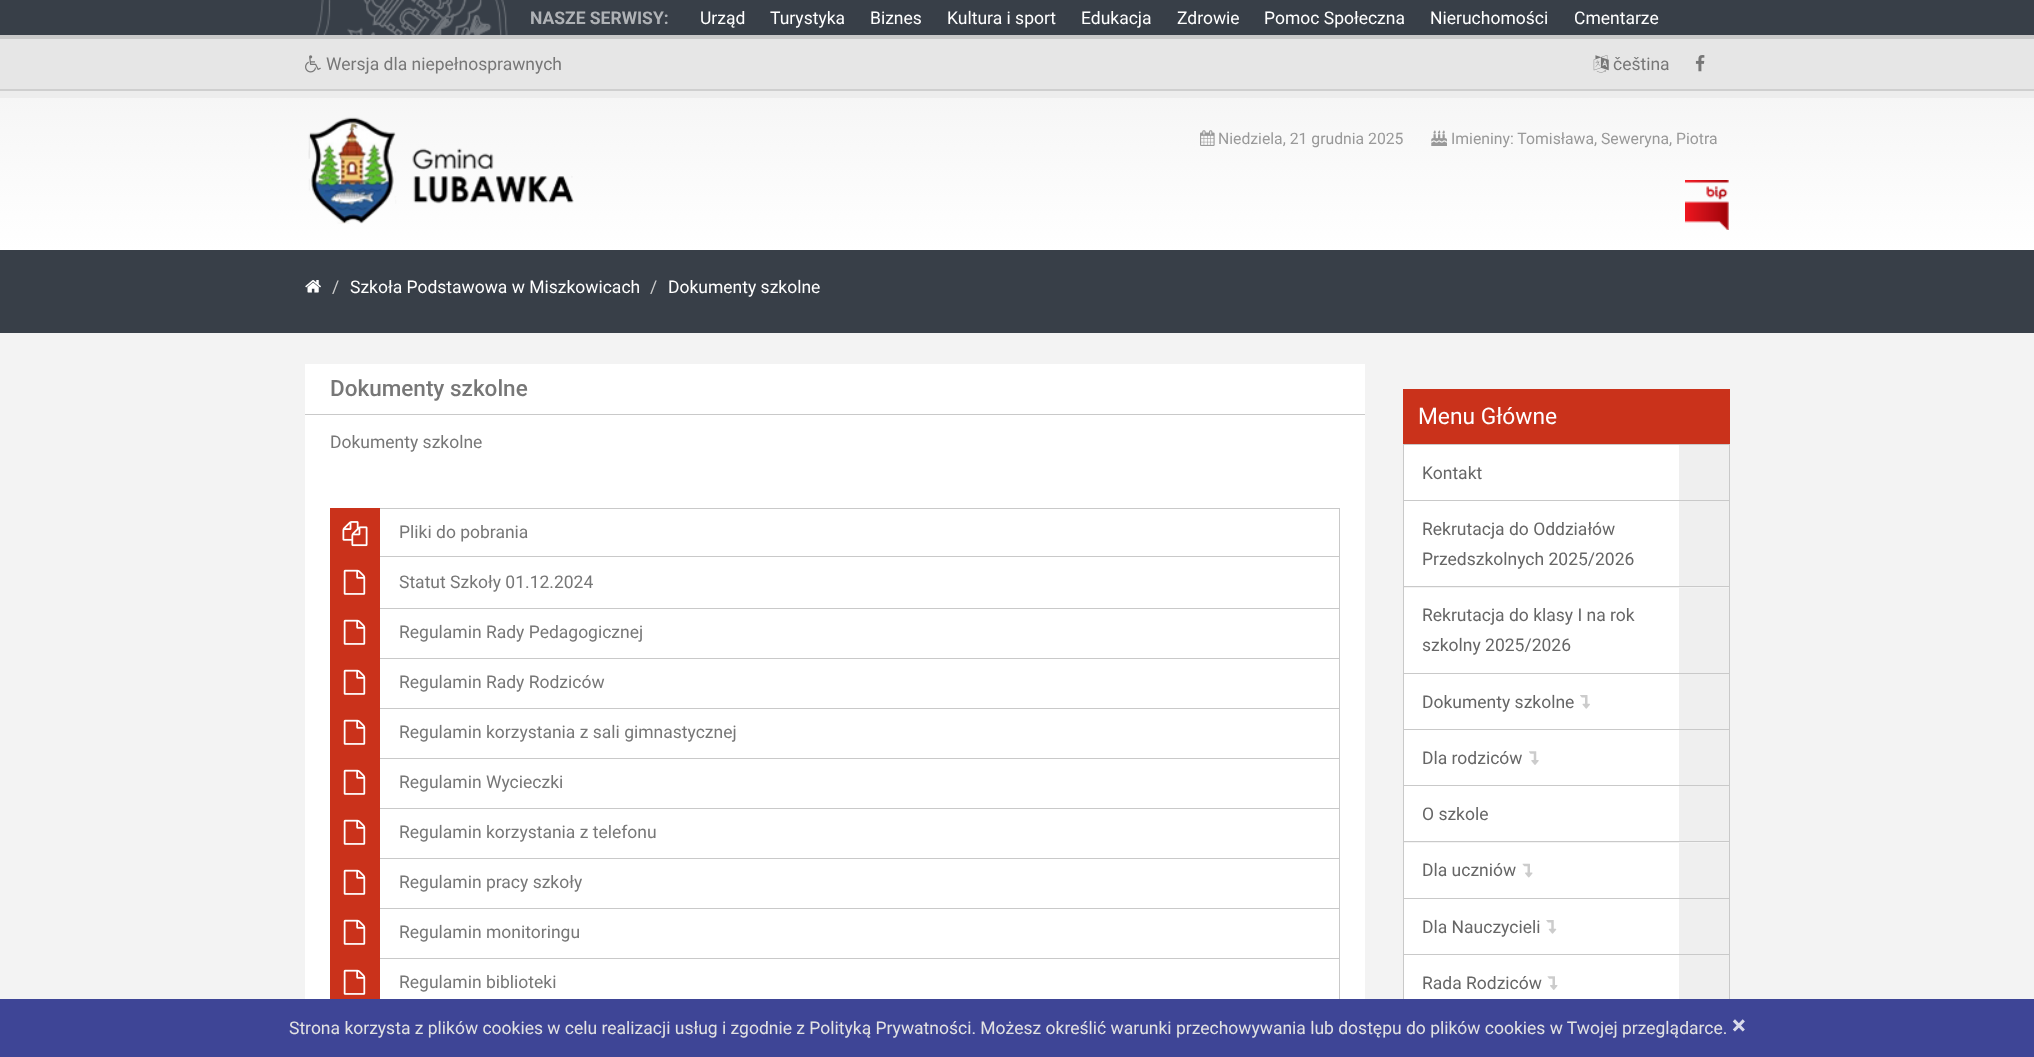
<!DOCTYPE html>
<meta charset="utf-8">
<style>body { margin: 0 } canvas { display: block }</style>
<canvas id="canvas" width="2034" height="1057"></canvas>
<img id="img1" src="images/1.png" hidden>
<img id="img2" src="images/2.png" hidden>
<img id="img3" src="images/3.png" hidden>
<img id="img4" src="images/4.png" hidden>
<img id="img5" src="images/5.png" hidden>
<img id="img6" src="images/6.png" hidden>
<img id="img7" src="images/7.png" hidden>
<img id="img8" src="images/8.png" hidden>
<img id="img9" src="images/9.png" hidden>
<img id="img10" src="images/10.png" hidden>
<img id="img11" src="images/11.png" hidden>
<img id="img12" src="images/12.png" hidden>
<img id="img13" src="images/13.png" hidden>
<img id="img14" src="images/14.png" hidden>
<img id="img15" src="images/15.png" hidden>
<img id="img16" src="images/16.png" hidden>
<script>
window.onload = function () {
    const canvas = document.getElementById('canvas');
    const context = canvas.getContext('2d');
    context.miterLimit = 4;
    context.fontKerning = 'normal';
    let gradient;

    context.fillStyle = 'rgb(56, 63, 72)';
    context.fillRect(0, 0, 2034, 1057);
    context.fillStyle = 'rgb(201, 201, 201)';
    context.fillRect(0, 35, 2034, 4);
    context.drawImage(document.getElementById('img1'), 315, 0, 193, 35);
    context.fillStyle = 'rgb(230, 230, 230)';
    context.fillRect(0, 39, 2034, 50);
    context.fillStyle = 'rgb(207, 207, 207)';
    context.fillRect(0, 89, 2034, 2);
    context.drawImage(document.getElementById('img2'), 305, 55, 16, 18);
    context.drawImage(document.getElementById('img3'), 1593, 55, 16, 18);
    context.drawImage(document.getElementById('img4'), 1695, 55, 10, 17);
    gradient = context.createLinearGradient(1018, 97, 1018, 250);
    gradient.addColorStop(0, 'rgb(246, 246, 246)');
    gradient.addColorStop(1, 'rgb(255, 255, 255)');
    context.fillStyle = gradient;
    context.fillRect(0, 98, 2034, 152);
    context.fillStyle = 'rgb(237, 237, 237)';
    context.fillRect(0, 91, 2034, 7);
    context.drawImage(document.getElementById('img5'), 308, 117, 266, 107);
    context.drawImage(document.getElementById('img6'), 1200, 130, 15, 16);
    context.drawImage(document.getElementById('img7'), 1431, 130, 16, 16);
    context.drawImage(document.getElementById('img8'), 1685, 180, 44, 50);
    context.fillStyle = 'rgb(243, 243, 243)';
    context.fillRect(0, 333, 2034, 666);
    context.drawImage(document.getElementById('img9'), 305, 280, 16, 13);
    context.fillStyle = 'rgb(255, 255, 255)';
    context.fillRect(305, 364, 1060, 635);
    context.fillStyle = 'rgb(201, 201, 201)';
    context.fillRect(305, 414, 1060, 1);
    context.fillStyle = 'rgb(202, 50, 27)';
    context.fillRect(330, 508, 50, 491);
    context.drawImage(document.getElementById('img10'), 342, 521, 26, 26);
    context.fillStyle = 'rgb(201, 201, 201)';
    context.fillRect(380, 508, 960, 1);
    context.fillRect(1339, 508, 1, 101);
    context.fillRect(380, 556, 960, 1);
    context.drawImage(document.getElementById('img11'), 343, 569, 23, 26);
    context.fillRect(380, 608, 960, 1);
    context.drawImage(document.getElementById('img11'), 343, 619, 23, 26);
    context.fillRect(1339, 608, 1, 51);
    context.fillRect(380, 658, 960, 1);
    context.drawImage(document.getElementById('img11'), 343, 669, 23, 26);
    context.fillRect(1339, 658, 1, 51);
    context.fillRect(380, 708, 960, 1);
    context.drawImage(document.getElementById('img11'), 343, 719, 23, 26);
    context.fillRect(1339, 708, 1, 51);
    context.fillRect(380, 758, 960, 1);
    context.drawImage(document.getElementById('img11'), 343, 769, 23, 26);
    context.fillRect(1339, 758, 1, 51);
    context.fillRect(380, 808, 960, 1);
    context.drawImage(document.getElementById('img11'), 343, 819, 23, 26);
    context.fillRect(1339, 808, 1, 51);
    context.fillRect(380, 858, 960, 1);
    context.drawImage(document.getElementById('img11'), 343, 869, 23, 26);
    context.fillRect(1339, 858, 1, 51);
    context.fillRect(380, 908, 960, 1);
    context.drawImage(document.getElementById('img11'), 343, 919, 23, 26);
    context.fillRect(1339, 908, 1, 51);
    context.fillRect(380, 958, 960, 1);
    context.drawImage(document.getElementById('img11'), 343, 969, 23, 26);
    context.beginPath();
    context.moveTo(1340, 958);
    context.lineTo(1340, 1010);
    context.lineTo(1339, 1008);
    context.lineTo(1339, 958);
    context.closePath();
    context.fill();
    context.fillStyle = 'rgb(202, 50, 27)';
    context.fillRect(1403, 389, 327, 55);
    context.fillStyle = 'rgb(201, 201, 201)';
    context.fillRect(1403, 444, 327, 1);
    context.fillRect(1729, 444, 1, 56);
    context.fillRect(1403, 444, 1, 56);
    context.fillStyle = 'rgb(255, 255, 255)';
    context.fillRect(1404, 445, 275, 55);
    context.fillStyle = 'rgb(239, 239, 239)';
    context.fillRect(1679, 445, 50, 55);
    context.fillStyle = 'rgb(201, 201, 201)';
    context.fillRect(1403, 500, 327, 1);
    context.fillRect(1729, 500, 1, 86);
    context.fillRect(1403, 500, 1, 86);
    context.fillStyle = 'rgb(255, 255, 255)';
    context.fillRect(1404, 501, 275, 85);
    context.fillStyle = 'rgb(239, 239, 239)';
    context.fillRect(1679, 501, 50, 85);
    context.fillStyle = 'rgb(201, 201, 201)';
    context.fillRect(1403, 586, 327, 1);
    context.fillRect(1729, 586, 1, 87);
    context.fillRect(1403, 586, 1, 87);
    context.fillStyle = 'rgb(255, 255, 255)';
    context.fillRect(1404, 588, 275, 85);
    context.fillStyle = 'rgb(239, 239, 239)';
    context.fillRect(1679, 588, 50, 85);
    context.fillStyle = 'rgb(201, 201, 201)';
    context.fillRect(1403, 673, 327, 1);
    context.fillRect(1729, 673, 1, 56);
    context.fillRect(1403, 673, 1, 56);
    context.fillStyle = 'rgb(255, 255, 255)';
    context.fillRect(1404, 674, 275, 55);
    context.fillStyle = 'rgb(239, 239, 239)';
    context.fillRect(1679, 674, 50, 55);
    context.drawImage(document.getElementById('img12'), 1580, 695, 10, 14);
    context.fillStyle = 'rgb(201, 201, 201)';
    context.fillRect(1403, 729, 327, 1);
    context.fillRect(1729, 729, 1, 56);
    context.fillRect(1403, 729, 1, 56);
    context.fillStyle = 'rgb(255, 255, 255)';
    context.fillRect(1404, 730, 275, 55);
    context.fillStyle = 'rgb(239, 239, 239)';
    context.fillRect(1679, 730, 50, 55);
    context.drawImage(document.getElementById('img13'), 1529, 751, 10, 14);
    context.fillStyle = 'rgb(201, 201, 201)';
    context.fillRect(1403, 785, 327, 1);
    context.fillRect(1729, 785, 1, 56);
    context.fillRect(1403, 785, 1, 56);
    context.fillStyle = 'rgb(255, 255, 255)';
    context.fillRect(1404, 786, 275, 55);
    context.fillStyle = 'rgb(239, 239, 239)';
    context.fillRect(1679, 786, 50, 55);
    context.fillStyle = 'rgb(201, 201, 201)';
    context.fillRect(1403, 841, 327, 1);
    context.fillRect(1729, 841, 1, 57);
    context.fillRect(1403, 841, 1, 57);
    context.fillStyle = 'rgb(255, 255, 255)';
    context.fillRect(1404, 843, 275, 55);
    context.fillStyle = 'rgb(239, 239, 239)';
    context.fillRect(1679, 843, 50, 55);
    context.drawImage(document.getElementById('img14'), 1522, 863, 11, 15);
    context.fillStyle = 'rgb(201, 201, 201)';
    context.fillRect(1403, 898, 327, 1);
    context.fillRect(1729, 898, 1, 56);
    context.fillRect(1403, 898, 1, 56);
    context.fillStyle = 'rgb(255, 255, 255)';
    context.fillRect(1404, 899, 275, 55);
    context.fillStyle = 'rgb(239, 239, 239)';
    context.fillRect(1679, 899, 50, 55);
    context.drawImage(document.getElementById('img15'), 1546, 920, 11, 14);
    context.fillStyle = 'rgb(201, 201, 201)';
    context.fillRect(1403, 954, 327, 1);
    context.fillRect(1729, 954, 1, 45);
    context.fillRect(1403, 954, 1, 45);
    context.fillStyle = 'rgb(255, 255, 255)';
    context.fillRect(1404, 955, 275, 44);
    context.fillStyle = 'rgb(239, 239, 239)';
    context.fillRect(1679, 955, 50, 44);
    context.drawImage(document.getElementById('img16'), 1547, 976, 11, 14);
    context.fillStyle = 'rgb(62, 69, 150)';
    context.fillRect(0, 999, 2034, 58);
    context.font = 'bold 17.5px Roboto';
    context.fillStyle = 'rgb(175, 178, 182)';
    context.fillText('NASZE SERWISY:', 530, 24);
    context.font = '17.5px Roboto';
    context.fillStyle = 'rgb(255, 255, 255)';
    context.fillText('Urząd', 700, 24);
    context.fillText('Turystyka', 770, 24);
    context.fillText('Biznes', 870, 24);
    context.fillText('Kultura i sport', 947, 24);
    context.fillText('Edukacja', 1081, 24);
    context.fillText('Zdrowie', 1177, 24);
    context.fillText('Pomoc Społeczna', 1264, 24);
    context.fillText('Nieruchomości', 1430, 24);
    context.fillText('Cmentarze', 1574, 24);
    context.fillStyle = 'rgb(119, 119, 119)';
    context.fillText('Wersja dla niepełnosprawnych', 326, 70);
    context.fillText('čeština', 1613, 70);
    context.font = '15.75px Roboto';
    context.fillStyle = 'rgb(153, 153, 153)';
    context.fillText('Niedziela, 21 grudnia 2025', 1218, 144);
    context.fillText('Imieniny: Tomisława, Seweryna, Piotra', 1451, 144);
    context.font = '17.5px Roboto';
    context.fillStyle = 'rgb(204, 204, 204)';
    context.fillText('/', 332, 293);
    context.fillStyle = 'rgb(255, 255, 255)';
    context.fillText('Szkoła Podstawowa w Miszkowicach', 350, 293);
    context.fillStyle = 'rgb(204, 204, 204)';
    context.fillText('/', 650, 293);
    context.fillStyle = 'rgb(255, 255, 255)';
    context.fillText('Dokumenty szkolne', 668, 293);
    context.font = '500 22.5px Roboto';
    context.fillStyle = 'rgb(119, 119, 119)';
    context.fillText('Dokumenty szkolne', 330, 396);
    context.font = '17.5px Roboto';
    context.fillText('Dokumenty szkolne', 330, 448);
    context.fillText('Pliki do pobrania', 399, 538);
    context.fillText('Statut Szkoły 01.12.2024', 399, 588);
    context.fillText('Regulamin Rady Pedagogicznej', 399, 638);
    context.fillText('Regulamin Rady Rodziców', 399, 688);
    context.fillText('Regulamin korzystania z sali gimnastycznej', 399, 738);
    context.fillText('Regulamin Wycieczki', 399, 788);
    context.fillText('Regulamin korzystania z telefonu', 399, 838);
    context.fillText('Regulamin pracy szkoły', 399, 888);
    context.fillText('Regulamin monitoringu', 399, 938);
    context.fillText('Regulamin biblioteki', 399, 988);
    context.font = '22.75px Roboto';
    context.fillStyle = 'rgb(255, 255, 255)';
    context.fillText('Menu Główne', 1418, 424);
    context.font = '17.5px Roboto';
    context.fillStyle = 'rgb(102, 102, 102)';
    context.fillText('Kontakt', 1422, 479);
    context.fillText('Rekrutacja do Oddziałów', 1422, 535);
    context.fillText('Przedszkolnych 2025/2026', 1422, 565);
    context.fillText('Rekrutacja do klasy I na rok', 1422, 621);
    context.fillText('szkolny 2025/2026', 1422, 651);
    context.fillText('Dokumenty szkolne', 1422, 708);
    context.fillText('Dla rodziców', 1422, 764);
    context.fillText('O szkole', 1422, 820);
    context.fillText('Dla uczniów', 1422, 876);
    context.fillText('Dla Nauczycieli', 1422, 933);
    context.fillText('Rada Rodziców', 1422, 989);
    context.fillStyle = 'rgb(226, 226, 226)';
    context.fillText('Strona korzysta z plików cookies w celu realizacji usług i zgodnie z Polityką Prywatności. Możesz określić warunki przechowywania lub dostępu do plików cookies w Twojej przeglądarce.', 289, 1034);
    context.font = 'bold 26px Roboto';
    context.fillStyle = 'rgb(216, 218, 234)';
    context.fillText('×', 1732, 1034);
};
</script>
